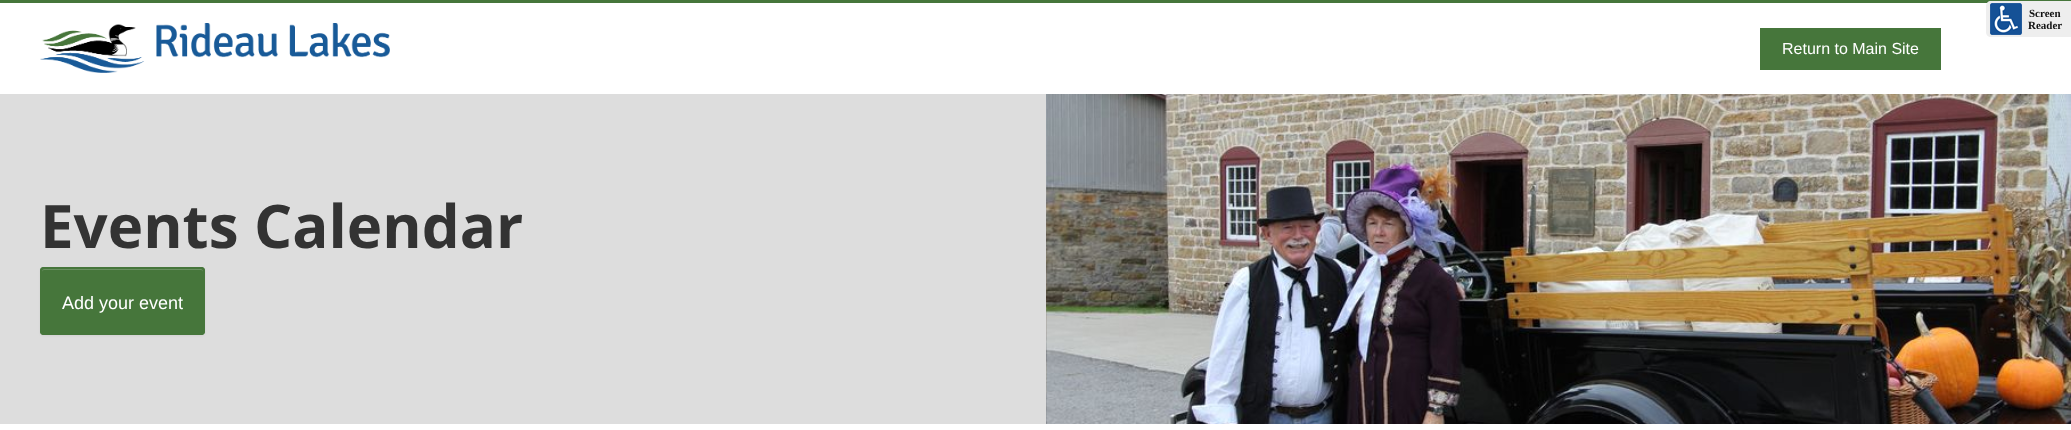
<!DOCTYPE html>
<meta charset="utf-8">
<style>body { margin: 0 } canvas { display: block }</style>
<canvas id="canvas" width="2071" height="430"></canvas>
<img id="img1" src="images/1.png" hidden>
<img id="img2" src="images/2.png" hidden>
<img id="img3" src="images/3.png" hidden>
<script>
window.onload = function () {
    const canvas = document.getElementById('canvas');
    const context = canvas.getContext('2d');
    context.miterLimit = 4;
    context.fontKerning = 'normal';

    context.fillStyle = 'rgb(255, 255, 255)';
    context.fillRect(0, 0, 2071, 430);
    context.fillStyle = 'rgb(70, 118, 59)';
    context.fillRect(0, 0, 2071, 3);
    context.fillStyle = 'rgb(238, 238, 238)';
    context.beginPath();
    context.moveTo(1991, 1);
    context.lineTo(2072, 1);
    context.lineTo(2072, 37);
    context.lineTo(1991, 37);
    context.bezierCurveTo(1988, 37, 1986, 35, 1986, 32);
    context.lineTo(1986, 6);
    context.bezierCurveTo(1986, 3, 1988, 1, 1991, 1);
    context.closePath();
    context.fill();
    context.drawImage(document.getElementById('img1'), 1990, 3, 32, 32);
    context.drawImage(document.getElementById('img2'), 40, 23, 350, 50);
    context.fillStyle = 'rgb(70, 118, 59)';
    context.fillRect(1760, 28, 181, 42);
    context.fillStyle = 'rgb(221, 221, 221)';
    context.fillRect(0, 94, 1046, 330);
    context.fillStyle = 'rgba(0, 0, 0, 0.05)';
    context.filter = 'blur(1px)';
    context.beginPath();
    context.roundRect(40, 268, 165, 68, 4);
    context.fill();
    context.filter = 'none';
    context.fillStyle = 'rgb(70, 118, 59)';
    context.beginPath();
    context.roundRect(40, 267, 165, 68, 4);
    context.fill();
    context.fillStyle = 'rgb(107, 145, 98)';
    context.beginPath();
    context.moveTo(44, 270);
    context.lineTo(201, 270);
    context.bezierCurveTo(202, 270, 203, 271, 203, 272);
    context.bezierCurveTo(203, 271, 203, 269, 201, 269);
    context.lineTo(44, 269);
    context.bezierCurveTo(42, 269, 42, 271, 42, 272);
    context.bezierCurveTo(42, 271, 43, 270, 44, 270);
    context.closePath();
    context.fill();
    context.beginPath();
    context.roundRect(41, 268, 163, 66, 3);
    context.strokeStyle = 'rgb(70, 118, 59)';
    context.lineWidth = 2;
    context.stroke();
    context.drawImage(document.getElementById('img3'), 1046, 94, 1025, 330);
    context.font = 'bold 11px Liberation Serif';
    context.fillStyle = 'rgb(17, 17, 17)';
    context.fillText('Screen', 2029, 17);
    context.fillText('Reader', 2028, 29);
    context.font = '16px Liberation Sans';
    context.fillStyle = 'rgb(255, 255, 255)';
    context.fillText('Return to Main Site', 1782, 54);
    context.font = 'bold 60px Open Sans';
    context.fillStyle = 'rgb(51, 51, 51)';
    context.fillText('Events Calendar', 40, 248);
    context.font = '18px Liberation Sans';
    context.fillStyle = 'rgb(255, 255, 255)';
    context.fillText('Add your event', 62, 309);
};
</script>
